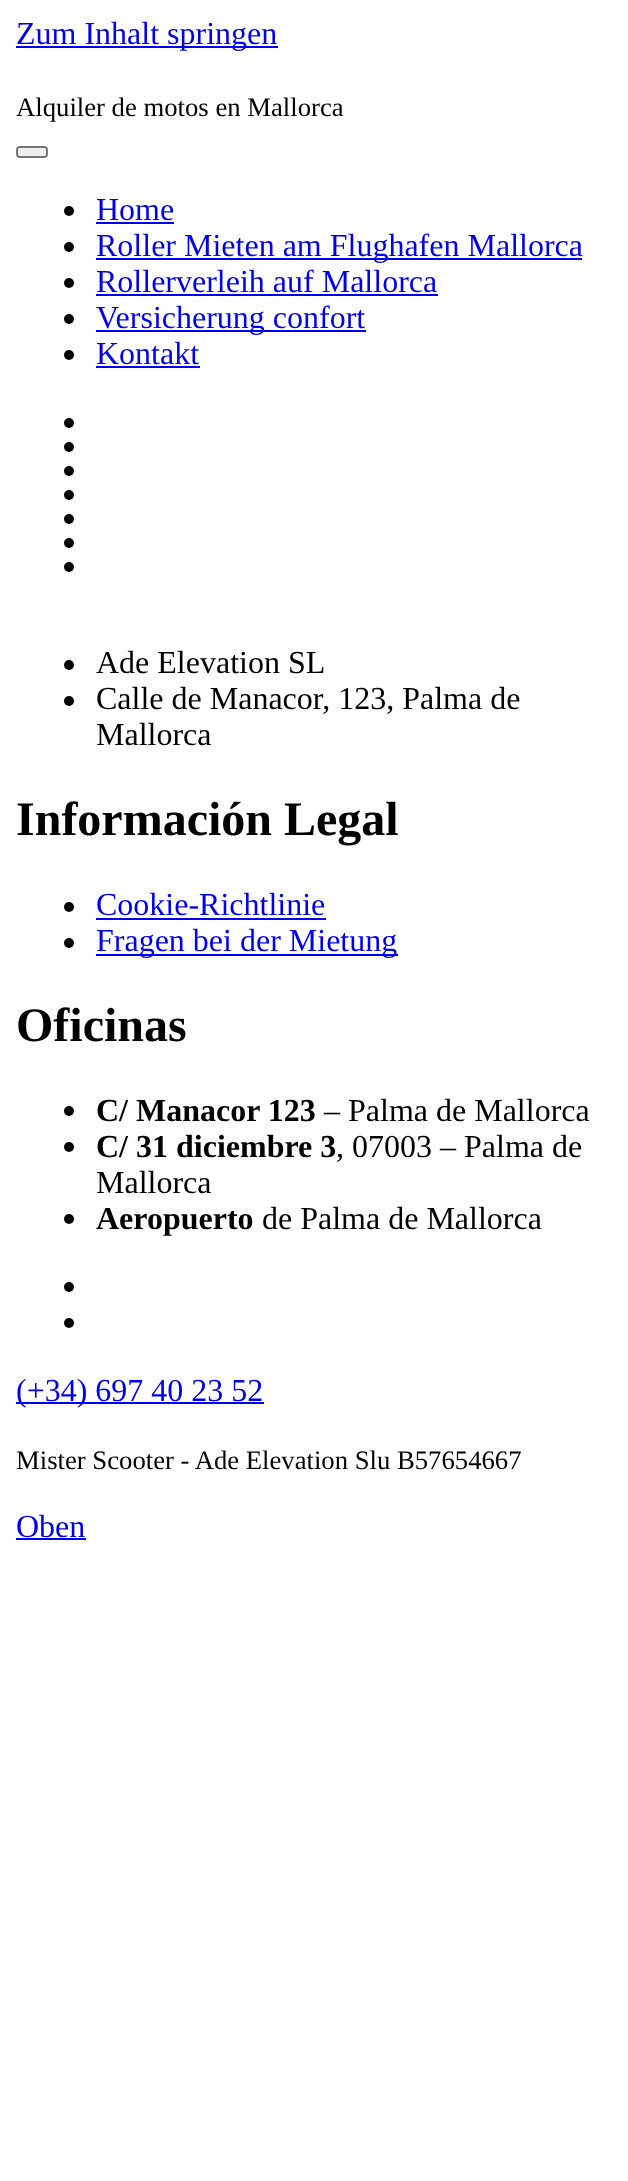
<!DOCTYPE html>
<meta charset="utf-8">
<style>body { margin: 0 } canvas { display: block }</style>
<canvas id="canvas" width="628" height="2181"></canvas>
<script>
window.onload = function () {
    const canvas = document.getElementById('canvas');
    const context = canvas.getContext('2d');
    context.miterLimit = 4;
    context.fontKerning = 'normal';

    context.fillStyle = 'rgb(255, 255, 255)';
    context.fillRect(0, 0, 628, 2181);
    context.fillStyle = 'rgb(0, 0, 238)';
    context.fillRect(16, 46, 262, 2);
    context.fillStyle = 'rgb(239, 239, 239)';
    context.beginPath();
    context.roundRect(17, 147, 30, 10, 3);
    context.fill();
    context.strokeStyle = 'rgb(118, 118, 118)';
    context.lineWidth = 2;
    context.stroke();
    context.fillStyle = 'rgb(0, 0, 0)';
    context.beginPath();
    context.arc(69, 211, 5, 0, 2 * Math.PI);
    context.fill();
    context.fillStyle = 'rgb(0, 0, 238)';
    context.fillRect(96, 222, 78, 2);
    context.fillStyle = 'rgb(0, 0, 0)';
    context.beginPath();
    context.arc(69, 247, 5, 0, 2 * Math.PI);
    context.fill();
    context.fillStyle = 'rgb(0, 0, 238)';
    context.fillRect(96, 258, 486, 2);
    context.fillStyle = 'rgb(0, 0, 0)';
    context.beginPath();
    context.arc(69, 283, 5, 0, 2 * Math.PI);
    context.fill();
    context.fillStyle = 'rgb(0, 0, 238)';
    context.fillRect(96, 294, 342, 2);
    context.fillStyle = 'rgb(0, 0, 0)';
    context.beginPath();
    context.arc(69, 319, 5, 0, 2 * Math.PI);
    context.fill();
    context.fillStyle = 'rgb(0, 0, 238)';
    context.fillRect(96, 330, 270, 2);
    context.fillStyle = 'rgb(0, 0, 0)';
    context.beginPath();
    context.arc(69, 355, 5, 0, 2 * Math.PI);
    context.fill();
    context.fillStyle = 'rgb(0, 0, 238)';
    context.fillRect(96, 366, 104, 2);
    context.fillStyle = 'rgb(0, 0, 0)';
    context.beginPath();
    context.arc(69, 423, 5, 0, 2 * Math.PI);
    context.fill();
    context.beginPath();
    context.arc(69, 447, 5, 0, 2 * Math.PI);
    context.fill();
    context.beginPath();
    context.arc(69, 471, 5, 0, 2 * Math.PI);
    context.fill();
    context.beginPath();
    context.arc(69, 495, 5, 0, 2 * Math.PI);
    context.fill();
    context.beginPath();
    context.arc(69, 519, 5, 0, 2 * Math.PI);
    context.fill();
    context.beginPath();
    context.arc(69, 543, 5, 0, 2 * Math.PI);
    context.fill();
    context.beginPath();
    context.arc(69, 567, 5, 0, 2 * Math.PI);
    context.fill();
    context.beginPath();
    context.arc(69, 665, 5, 0, 2 * Math.PI);
    context.fill();
    context.beginPath();
    context.arc(69, 701, 5, 0, 2 * Math.PI);
    context.fill();
    context.beginPath();
    context.arc(69, 907, 5, 0, 2 * Math.PI);
    context.fill();
    context.fillStyle = 'rgb(0, 0, 238)';
    context.fillRect(96, 918, 230, 2);
    context.fillStyle = 'rgb(0, 0, 0)';
    context.beginPath();
    context.arc(69, 943, 5, 0, 2 * Math.PI);
    context.fill();
    context.fillStyle = 'rgb(0, 0, 238)';
    context.fillRect(96, 954, 302, 2);
    context.fillStyle = 'rgb(0, 0, 0)';
    context.beginPath();
    context.arc(69, 1111, 5, 0, 2 * Math.PI);
    context.fill();
    context.beginPath();
    context.arc(69, 1147, 5, 0, 2 * Math.PI);
    context.fill();
    context.beginPath();
    context.arc(69, 1219, 5, 0, 2 * Math.PI);
    context.fill();
    context.beginPath();
    context.arc(69, 1287, 5, 0, 2 * Math.PI);
    context.fill();
    context.beginPath();
    context.arc(69, 1323, 5, 0, 2 * Math.PI);
    context.fill();
    context.fillStyle = 'rgb(0, 0, 238)';
    context.fillRect(16, 1402, 248, 2);
    context.fillRect(16, 1538, 70, 2);
    context.font = '32px Liberation Serif';
    context.fillText('Zum Inhalt springen', 16, 44);
    context.font = '26.7px Liberation Serif';
    context.fillStyle = 'rgb(0, 0, 0)';
    context.fillText('Alquiler de motos en Mallorca', 16, 116);
    context.font = '32px Liberation Serif';
    context.fillStyle = 'rgb(0, 0, 238)';
    context.fillText('Home', 96, 220);
    context.fillText('Roller Mieten am Flughafen Mallorca', 96, 256);
    context.fillText('Rollerverleih auf Mallorca', 96, 292);
    context.fillText('Versicherung confort', 96, 328);
    context.fillText('Kontakt', 96, 364);
    context.fillStyle = 'rgb(0, 0, 0)';
    context.fillText('Ade Elevation SL', 96, 673);
    context.fillText('Calle de Manacor, 123, Palma de', 96, 709);
    context.fillText('Mallorca', 96, 745);
    context.font = 'bold 48px Liberation Serif';
    context.fillText('Información Legal', 16, 835);
    context.font = '32px Liberation Serif';
    context.fillStyle = 'rgb(0, 0, 238)';
    context.fillText('Cookie-Richtlinie', 96, 915);
    context.fillText('Fragen bei der Mietung', 96, 951);
    context.font = 'bold 48px Liberation Serif';
    context.fillStyle = 'rgb(0, 0, 0)';
    context.fillText('Oficinas', 16, 1041);
    context.font = 'bold 32px Liberation Serif';
    context.fillText('C/ Manacor 123', 96, 1121);
    context.font = '32px Liberation Serif';
    context.fillText('– Palma de Mallorca', 324, 1121);
    context.font = 'bold 32px Liberation Serif';
    context.fillText('C/ 31 diciembre 3', 96, 1157);
    context.font = '32px Liberation Serif';
    context.fillText(', 07003 – Palma de', 336, 1157);
    context.fillText('Mallorca', 96, 1193);
    context.font = 'bold 32px Liberation Serif';
    context.fillText('Aeropuerto', 96, 1229);
    context.font = '32px Liberation Serif';
    context.fillText('de Palma de Mallorca', 262, 1229);
    context.fillStyle = 'rgb(0, 0, 238)';
    context.fillText('(+34) 697 40 23 52', 16, 1401);
    context.font = '26.7px Liberation Serif';
    context.fillStyle = 'rgb(0, 0, 0)';
    context.fillText('Mister Scooter - Ade Elevation Slu B57654667', 16, 1469);
    context.font = '32px Liberation Serif';
    context.fillStyle = 'rgb(0, 0, 238)';
    context.fillText('Oben', 16, 1537);
};
</script>
